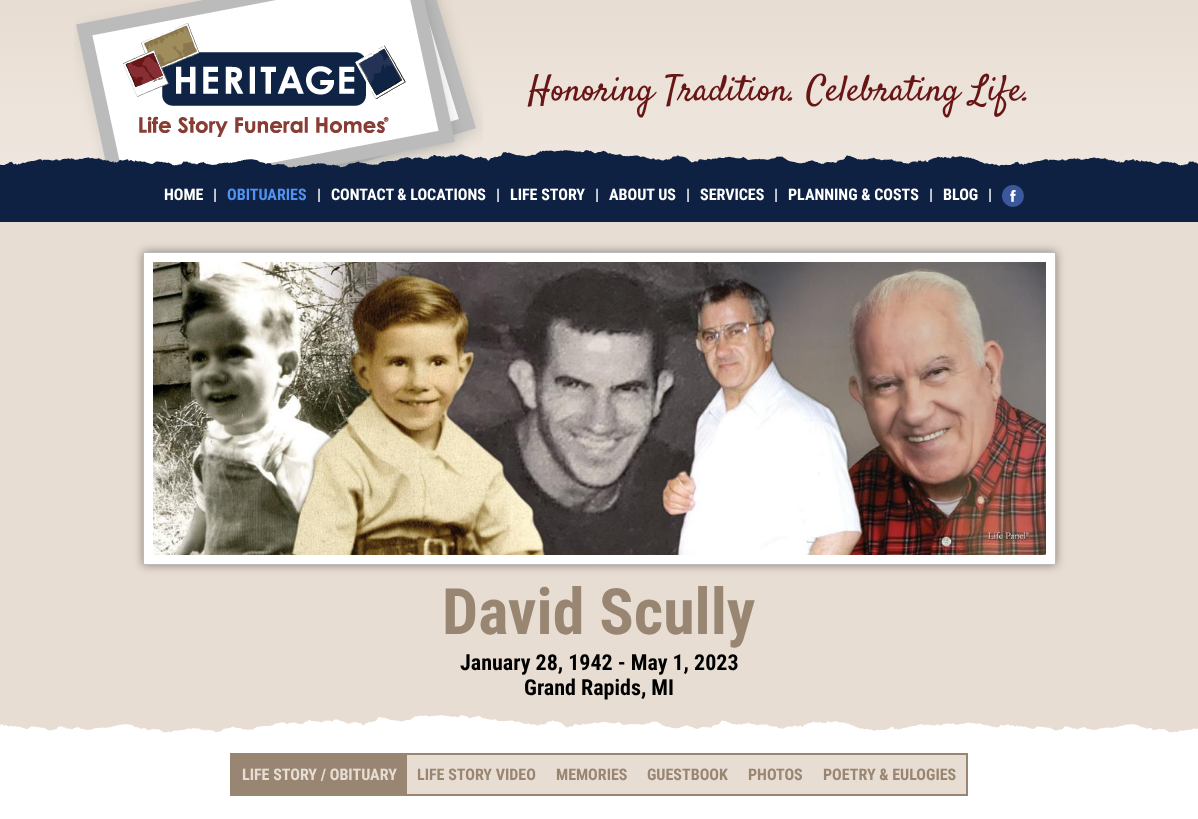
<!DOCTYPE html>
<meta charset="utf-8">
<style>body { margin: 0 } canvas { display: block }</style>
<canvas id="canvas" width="1198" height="819"></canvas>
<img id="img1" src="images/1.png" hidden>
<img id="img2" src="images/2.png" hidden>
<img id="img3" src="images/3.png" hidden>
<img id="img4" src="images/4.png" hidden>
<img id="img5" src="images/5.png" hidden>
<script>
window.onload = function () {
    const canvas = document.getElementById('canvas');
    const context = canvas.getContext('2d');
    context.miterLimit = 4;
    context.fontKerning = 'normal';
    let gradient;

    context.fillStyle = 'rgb(255, 255, 255)';
    context.fillRect(0, 0, 1198, 819);
    gradient = context.createLinearGradient(599, 0, 599, 735);
    gradient.addColorStop(0, 'rgb(232, 221, 210)');
    gradient.addColorStop(0.8, 'rgb(255, 255, 255)');
    context.fillStyle = gradient;
    context.fillRect(0, 0, 1198, 166);
    context.drawImage(document.getElementById('img1'), 74, 0, 409, 168);
    context.drawImage(document.getElementById('img2'), 0, 150, 1198, 20);
    context.fillStyle = 'rgb(14, 33, 66)';
    context.fillRect(0, 170, 1198, 52);
    context.drawImage(document.getElementById('img3'), 1002, 185, 22, 22);
    context.fillStyle = 'rgb(232, 221, 210)';
    context.fillRect(0, 222, 1198, 511);
    context.fillStyle = 'rgba(0, 0, 0, 0.43)';
    context.filter = 'blur(5px)';
    context.beginPath();
    context.rect(143, 252, 913, 313);
    context.fill();
    context.filter = 'none';
    context.fillStyle = 'rgb(255, 255, 255)';
    context.beginPath();
    context.rect(143.5, 252.5, 912, 312);
    context.fill();
    context.strokeStyle = 'rgb(187, 187, 187)';
    context.stroke();
    context.drawImage(document.getElementById('img4'), 153, 262, 893, 293);
    context.drawImage(document.getElementById('img5'), 0, 715, 1198, 20);
    context.fillStyle = 'rgb(152, 134, 115)';
    context.fillRect(230, 753, 177, 43);
    context.fillStyle = 'rgb(232, 221, 210)';
    context.fillRect(407, 755, 559, 39);
    context.fillStyle = 'rgb(152, 134, 115)';
    context.fillRect(407, 753, 561, 2);
    context.fillRect(407, 794, 406, 2);
    context.fillRect(966, 753, 2, 43);
    context.fillRect(813, 794, 155, 2);
    context.font = '36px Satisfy';
    context.fillStyle = 'rgb(103, 21, 21)';
    context.fillText('Honoring Tradition. Celebrating Life.', 528, 100);
    context.font = 'bold 16px Roboto Condensed';
    context.fillStyle = 'rgb(255, 255, 255)';
    context.fillText('HOME', 164, 200);
    context.fillText('|', 213, 200);
    context.fillStyle = 'rgb(82, 146, 242)';
    context.fillText('OBITUARIES', 227, 200);
    context.fillStyle = 'rgb(255, 255, 255)';
    context.fillText('|', 317, 200);
    context.fillText('CONTACT & LOCATIONS', 331, 200);
    context.fillText('|', 496, 200);
    context.fillText('LIFE STORY', 510, 200);
    context.fillText('|', 595, 200);
    context.fillText('ABOUT US', 609, 200);
    context.fillText('|', 686, 200);
    context.fillText('SERVICES', 700, 200);
    context.fillText('|', 774, 200);
    context.fillText('PLANNING & COSTS', 788, 200);
    context.fillText('|', 929, 200);
    context.fillText('BLOG', 943, 200);
    context.fillText('|', 988, 200);
    context.font = 'bold 64px Roboto Condensed';
    context.fillStyle = 'rgb(152, 134, 115)';
    context.fillText('David Scully', 442, 634);
    context.font = 'bold 22px Roboto Condensed';
    context.fillStyle = 'rgb(0, 0, 0)';
    context.fillText('January 28, 1942 - May 1, 2023', 460, 670);
    context.fillText('Grand Rapids, MI', 524, 695);
    context.font = 'bold 16px Roboto Condensed';
    context.fillStyle = 'rgb(232, 221, 210)';
    context.fillText('LIFE STORY / OBITUARY', 242, 780);
    context.fillStyle = 'rgb(152, 134, 115)';
    context.fillText('LIFE STORY VIDEO', 417, 780);
    context.fillText('MEMORIES', 556, 780);
    context.fillText('GUESTBOOK', 647, 780);
    context.fillText('PHOTOS', 748, 780);
    context.fillText('POETRY & EULOGIES', 823, 780);
};
</script>
